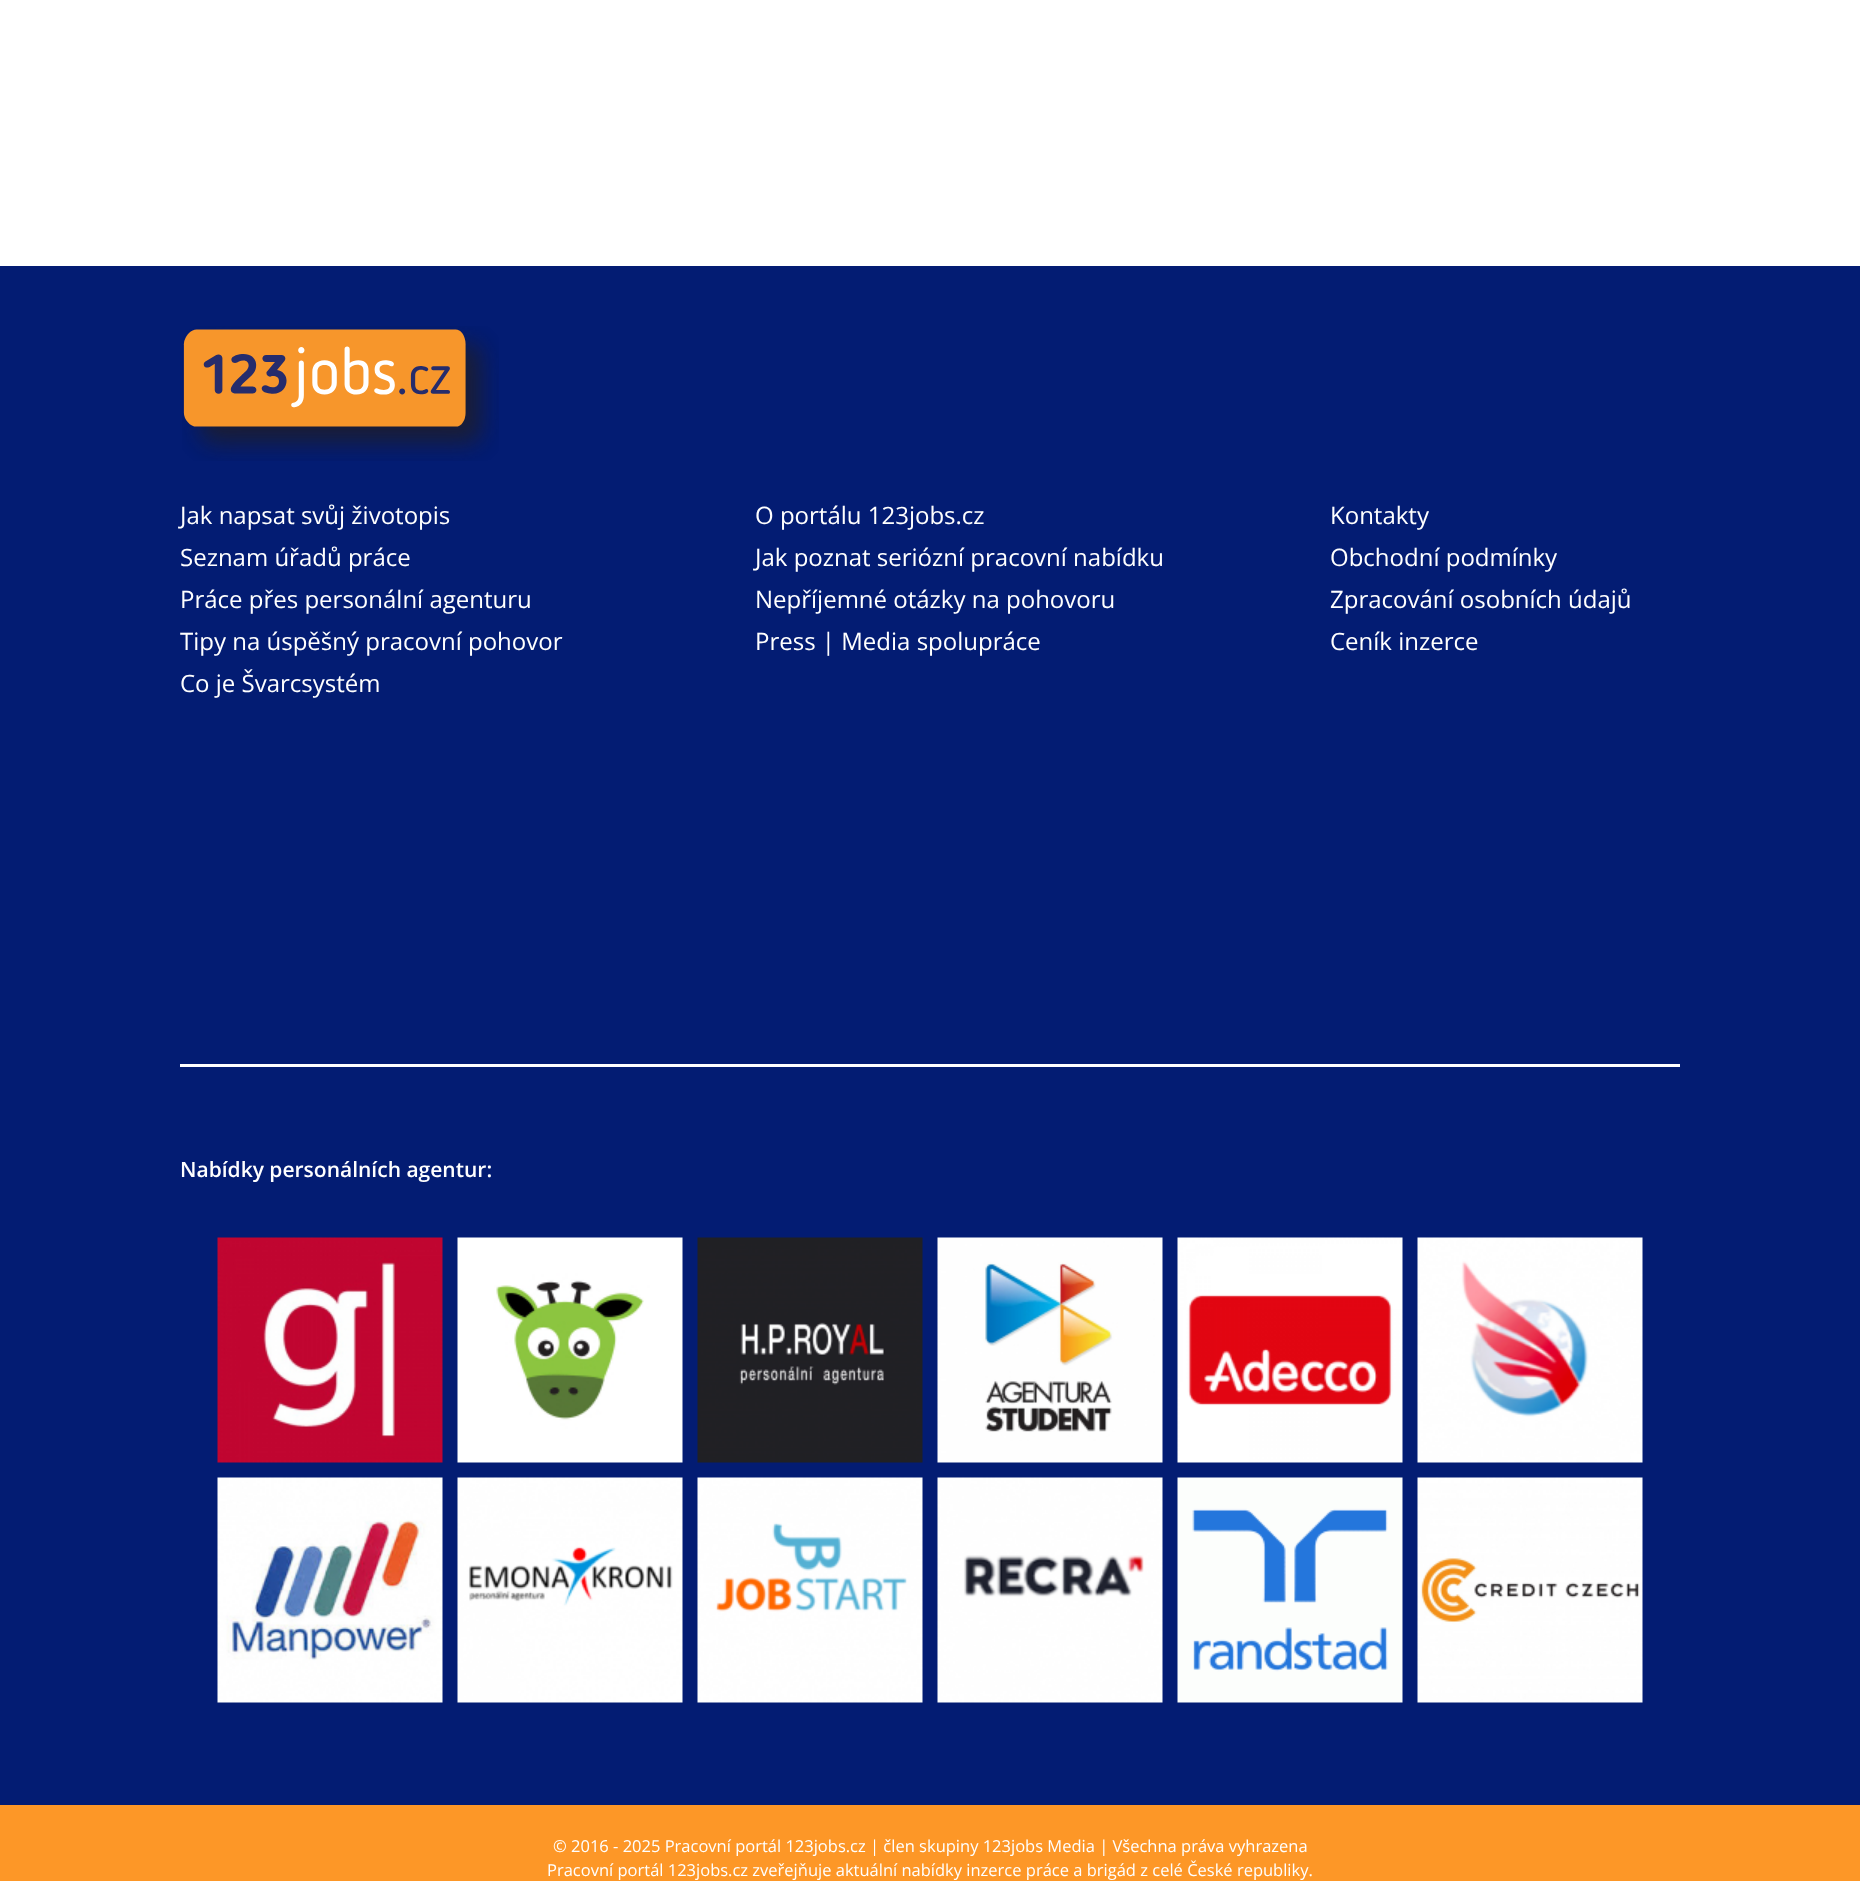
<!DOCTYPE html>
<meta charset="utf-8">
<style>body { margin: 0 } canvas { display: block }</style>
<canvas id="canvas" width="1860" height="1881"></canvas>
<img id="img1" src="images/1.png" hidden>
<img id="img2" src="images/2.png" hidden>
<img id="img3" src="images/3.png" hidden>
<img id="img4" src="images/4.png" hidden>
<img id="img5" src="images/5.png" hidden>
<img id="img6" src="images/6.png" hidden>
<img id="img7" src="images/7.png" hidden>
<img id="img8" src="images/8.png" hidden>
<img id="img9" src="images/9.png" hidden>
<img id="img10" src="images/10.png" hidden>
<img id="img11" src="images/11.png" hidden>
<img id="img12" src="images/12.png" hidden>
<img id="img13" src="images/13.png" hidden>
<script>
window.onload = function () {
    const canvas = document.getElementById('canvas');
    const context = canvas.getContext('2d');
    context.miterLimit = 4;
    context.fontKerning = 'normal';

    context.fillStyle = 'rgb(255, 255, 255)';
    context.fillRect(0, 0, 1860, 1881);
    context.fillStyle = 'rgb(3, 28, 115)';
    context.fillRect(0, 266, 1860, 1539);
    context.drawImage(document.getElementById('img1'), 182, 326, 317, 135);
    context.fillStyle = 'rgb(255, 255, 255)';
    context.fillRect(180, 1064, 1500, 3);
    context.drawImage(document.getElementById('img2'), 217, 1237, 226, 226);
    context.drawImage(document.getElementById('img3'), 457, 1237, 226, 226);
    context.drawImage(document.getElementById('img4'), 697, 1237, 226, 226);
    context.drawImage(document.getElementById('img5'), 937, 1237, 226, 226);
    context.drawImage(document.getElementById('img6'), 1177, 1237, 226, 226);
    context.drawImage(document.getElementById('img7'), 1417, 1237, 226, 226);
    context.drawImage(document.getElementById('img8'), 217, 1477, 226, 226);
    context.drawImage(document.getElementById('img9'), 457, 1477, 226, 226);
    context.drawImage(document.getElementById('img10'), 697, 1477, 226, 226);
    context.drawImage(document.getElementById('img11'), 937, 1477, 226, 226);
    context.drawImage(document.getElementById('img12'), 1177, 1477, 226, 226);
    context.drawImage(document.getElementById('img13'), 1417, 1477, 226, 226);
    context.fillStyle = 'rgb(253, 151, 39)';
    context.fillRect(0, 1805, 1860, 76);
    context.font = '24px Open Sans';
    context.fillStyle = 'rgb(255, 255, 255)';
    context.fillText('Jak napsat svůj životopis', 180, 524);
    context.fillText('Seznam úřadů práce', 180, 566);
    context.fillText('Práce přes personální agenturu', 180, 608);
    context.fillText('Tipy na úspěšný pracovní pohovor', 180, 650);
    context.fillText('Co je Švarcsystém', 180, 692);
    context.fillText('O portálu 123jobs.cz', 755, 524);
    context.fillText('Jak poznat seriózní pracovní nabídku', 755, 566);
    context.fillText('Nepříjemné otázky na pohovoru', 755, 608);
    context.fillText('Press | Media spolupráce', 755, 650);
    context.fillText('Kontakty', 1330, 524);
    context.fillText('Obchodní podmínky', 1330, 566);
    context.fillText('Zpracování osobních údajů', 1330, 608);
    context.fillText('Ceník inzerce', 1330, 650);
    context.font = '600 21px Open Sans';
    context.fillText('Nabídky personálních agentur:', 180, 1177);
    context.font = '16.5px Open Sans';
    context.fillText('© 2016 - 2025 Pracovní portál 123jobs.cz | člen skupiny 123jobs Media | Všechna práva vyhrazena', 553, 1852);
    context.fillText('Pracovní portál 123jobs.cz zveřejňuje aktuální nabídky inzerce práce a brigád z celé České republiky.', 547, 1876);
};
</script>
